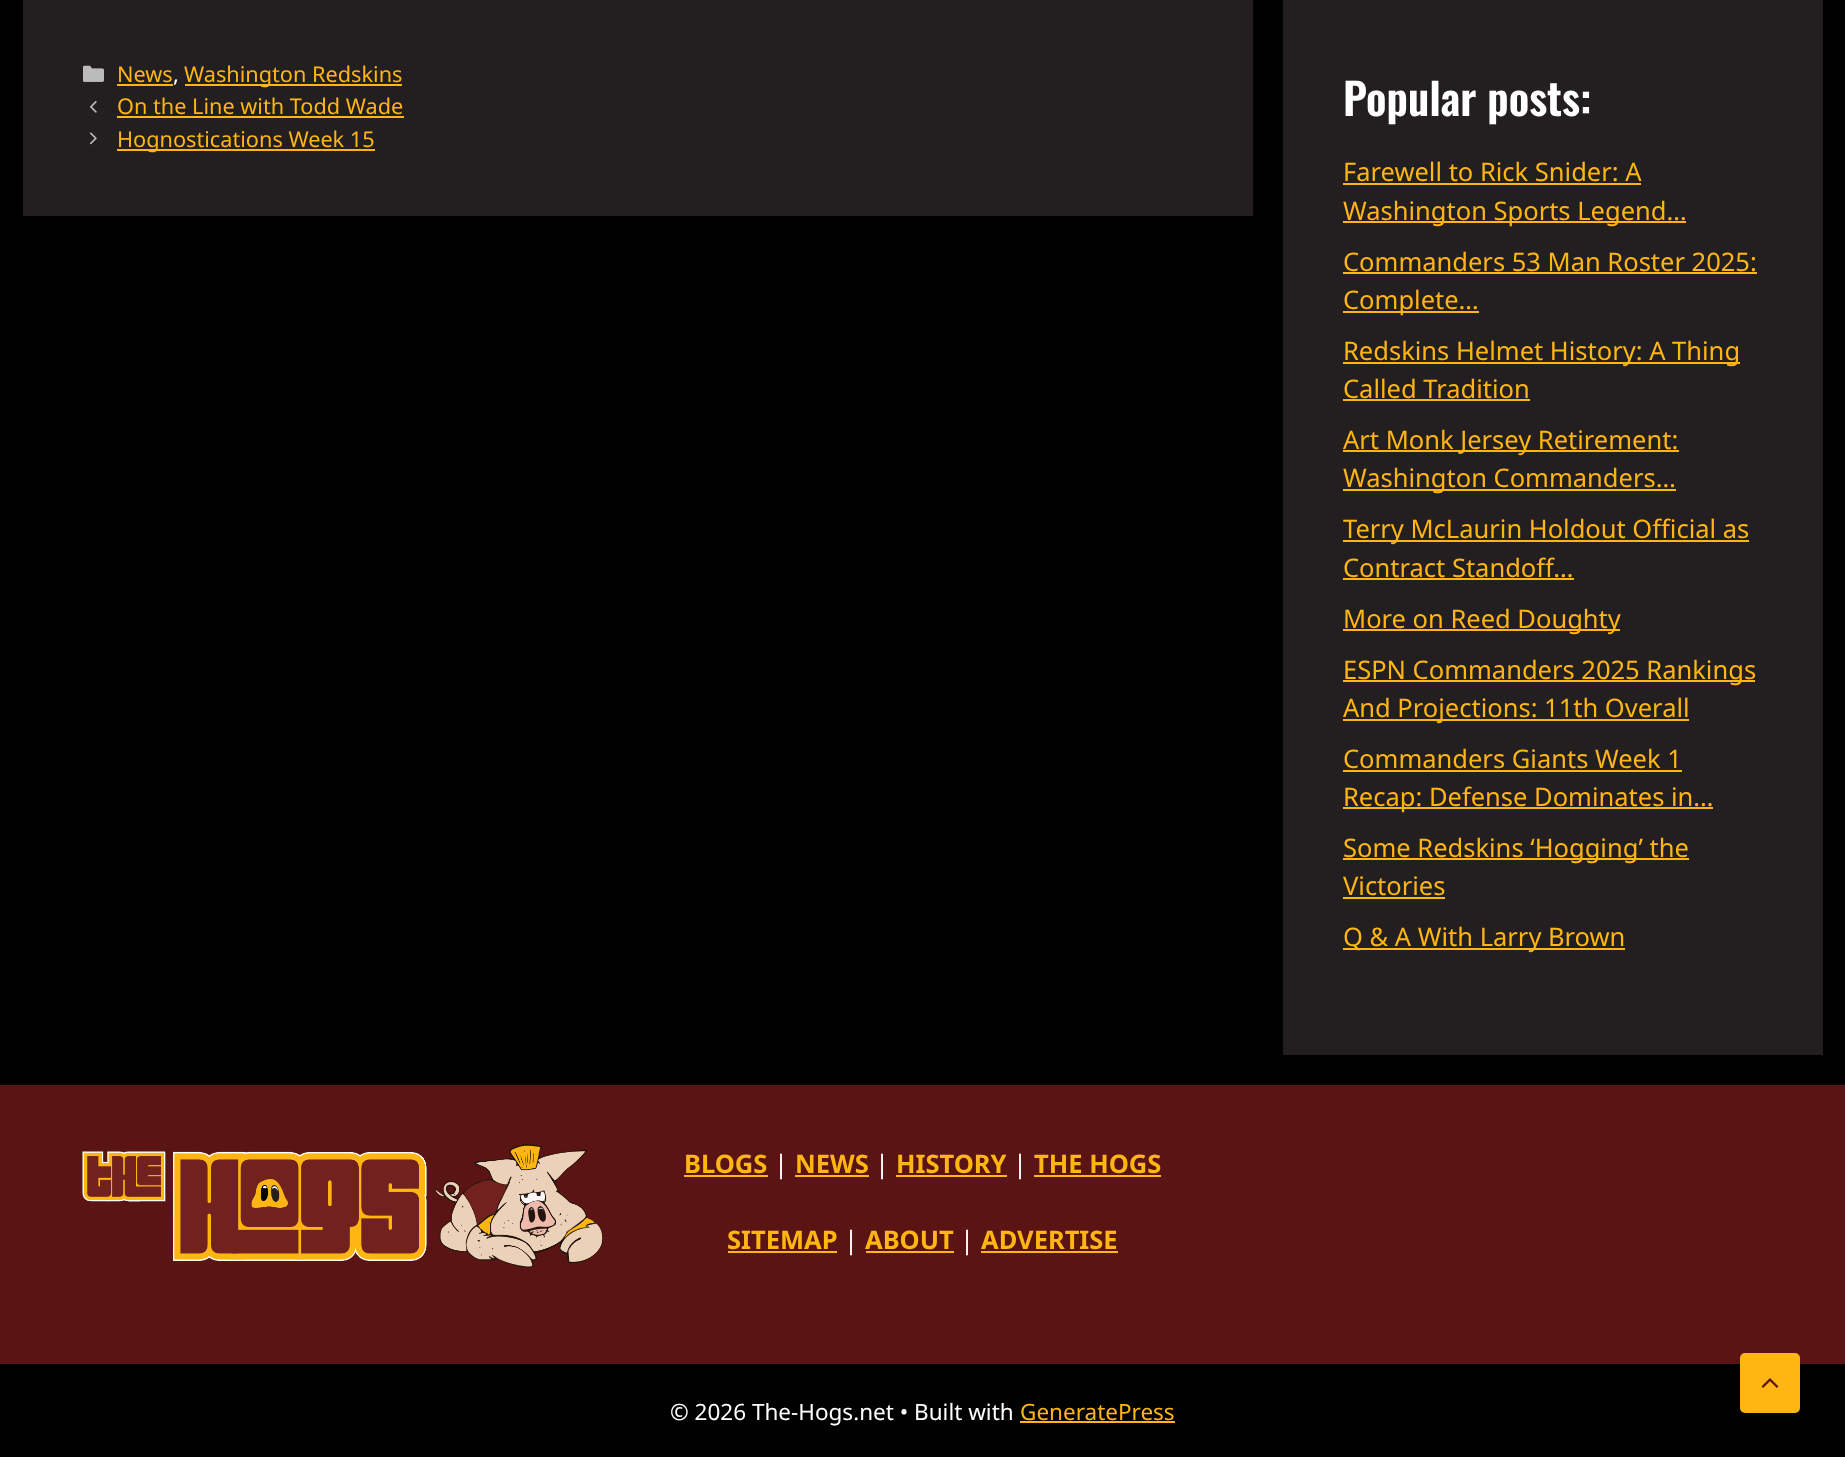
<!DOCTYPE html>
<meta charset="utf-8">
<style>body { margin: 0 } canvas { display: block }</style>
<canvas id="canvas" width="1845" height="1457"></canvas>
<img id="img1" src="images/1.png" hidden>
<img id="img2" src="images/2.png" hidden>
<img id="img3" src="images/3.png" hidden>
<img id="img4" src="images/4.png" hidden>
<img id="img5" src="images/5.png" hidden>
<script>
window.onload = function () {
    const canvas = document.getElementById('canvas');
    const context = canvas.getContext('2d');
    context.miterLimit = 4;
    context.fontKerning = 'normal';

    context.fillStyle = 'rgb(0, 0, 0)';
    context.fillRect(0, 0, 1845, 1457);
    context.fillStyle = 'rgb(35, 31, 32)';
    context.fillRect(23, 0, 1230, 216);
    context.drawImage(document.getElementById('img1'), 83, 65, 21, 17);
    context.fillStyle = 'rgb(255, 182, 18)';
    context.fillRect(117, 84, 56, 2);
    context.fillRect(185, 84, 217, 2);
    context.drawImage(document.getElementById('img2'), 89, 100, 8, 13);
    context.fillRect(117, 116, 287, 2);
    context.drawImage(document.getElementById('img3'), 89, 132, 8, 13);
    context.fillRect(117, 149, 258, 2);
    context.fillStyle = 'rgb(35, 31, 32)';
    context.fillRect(1283, 0, 540, 1055);
    context.fillStyle = 'rgb(255, 182, 18)';
    context.fillRect(1343, 183, 298, 2);
    context.fillRect(1343, 221, 343, 2);
    context.fillRect(1343, 272, 414, 2);
    context.fillRect(1343, 311, 136, 2);
    context.fillRect(1343, 362, 397, 2);
    context.fillRect(1343, 399, 187, 2);
    context.fillRect(1343, 450, 336, 2);
    context.fillRect(1343, 489, 333, 2);
    context.fillRect(1343, 540, 406, 2);
    context.fillRect(1343, 578, 231, 2);
    context.fillRect(1343, 629, 277, 2);
    context.fillRect(1343, 680, 412, 2);
    context.fillRect(1343, 719, 346, 2);
    context.fillRect(1343, 770, 339, 2);
    context.fillRect(1343, 807, 370, 2);
    context.fillRect(1343, 858, 346, 2);
    context.fillRect(1343, 897, 102, 2);
    context.fillRect(1343, 948, 282, 2);
    context.fillStyle = 'rgb(90, 20, 20)';
    context.fillRect(0, 1085, 1845, 279);
    context.drawImage(document.getElementById('img4'), 82, 1144, 521, 124);
    context.fillStyle = 'rgb(255, 182, 18)';
    context.fillRect(684, 1175, 84, 2);
    context.fillRect(795, 1175, 74, 2);
    context.fillRect(896, 1175, 111, 2);
    context.fillRect(1034, 1175, 127, 2);
    context.fillRect(728, 1251, 109, 2);
    context.fillRect(866, 1251, 88, 2);
    context.fillRect(981, 1251, 137, 2);
    context.fillRect(1020, 1421, 155, 2);
    context.beginPath();
    context.roundRect(1740, 1353, 60, 60, 5);
    context.fill();
    context.drawImage(document.getElementById('img5'), 1761, 1378, 18, 10);
    context.font = '21.7px Noto Sans';
    context.fillText('News', 117, 82);
    context.fillStyle = 'rgb(255, 255, 255)';
    context.fillText(',', 173, 82);
    context.fillStyle = 'rgb(255, 182, 18)';
    context.fillText('Washington Redskins', 184, 82);
    context.fillText('On the Line with Todd Wade', 117, 114);
    context.fillText('Hognostications Week 15', 117, 147);
    context.font = '600 43.5px Oswald';
    context.fillStyle = 'rgb(255, 255, 255)';
    context.fillText('Popular posts:', 1343, 116);
    context.font = '25.5px Noto Sans';
    context.fillStyle = 'rgb(255, 182, 18)';
    context.fillText('Farewell to Rick Snider: A', 1343, 181);
    context.fillText('Washington Sports Legend…', 1343, 220);
    context.fillText('Commanders 53 Man Roster 2025:', 1343, 271);
    context.fillText('Complete…', 1343, 309);
    context.fillText('Redskins Helmet History: A Thing', 1343, 360);
    context.fillText('Called Tradition', 1343, 398);
    context.fillText('Art Monk Jersey Retirement:', 1343, 449);
    context.fillText('Washington Commanders…', 1343, 487);
    context.fillText('Terry McLaurin Holdout Official as', 1343, 538);
    context.fillText('Contract Standoff…', 1343, 577);
    context.fillText('More on Reed Doughty', 1343, 628);
    context.fillText('ESPN Commanders 2025 Rankings', 1343, 679);
    context.fillText('And Projections: 11th Overall', 1343, 717);
    context.fillText('Commanders Giants Week 1', 1343, 768);
    context.fillText('Recap: Defense Dominates in…', 1343, 806);
    context.fillText('Some Redskins ‘Hogging’ the', 1343, 857);
    context.fillText('Victories', 1343, 895);
    context.fillText('Q & A With Larry Brown', 1343, 946);
    context.font = 'bold 25.5px Noto Sans';
    context.fillText('BLOGS', 684, 1173);
    context.font = '25.5px Noto Sans';
    context.fillStyle = 'rgb(255, 255, 255)';
    context.fillText('|', 774, 1173);
    context.font = 'bold 25.5px Noto Sans';
    context.fillStyle = 'rgb(255, 182, 18)';
    context.fillText('NEWS', 795, 1173);
    context.font = '25.5px Noto Sans';
    context.fillStyle = 'rgb(255, 255, 255)';
    context.fillText('|', 875, 1173);
    context.font = 'bold 25.5px Noto Sans';
    context.fillStyle = 'rgb(255, 182, 18)';
    context.fillText('HISTORY', 896, 1173);
    context.font = '25.5px Noto Sans';
    context.fillStyle = 'rgb(255, 255, 255)';
    context.fillText('|', 1013, 1173);
    context.font = 'bold 25.5px Noto Sans';
    context.fillStyle = 'rgb(255, 182, 18)';
    context.fillText('THE HOGS', 1034, 1173);
    context.fillText('SITEMAP', 727, 1249);
    context.font = '25.5px Noto Sans';
    context.fillStyle = 'rgb(255, 255, 255)';
    context.fillText('|', 844, 1249);
    context.font = 'bold 25.5px Noto Sans';
    context.fillStyle = 'rgb(255, 182, 18)';
    context.fillText('ABOUT', 865, 1249);
    context.font = '25.5px Noto Sans';
    context.fillStyle = 'rgb(255, 255, 255)';
    context.fillText('|', 960, 1249);
    context.font = 'bold 25.5px Noto Sans';
    context.fillStyle = 'rgb(255, 182, 18)';
    context.fillText('ADVERTISE', 981, 1249);
    context.font = '22.5px Noto Sans';
    context.fillStyle = 'rgb(255, 255, 255)';
    context.fillText('© 2026 The-Hogs.net • Built with', 670, 1420);
    context.fillStyle = 'rgb(255, 182, 18)';
    context.fillText('GeneratePress', 1020, 1420);
};
</script>
